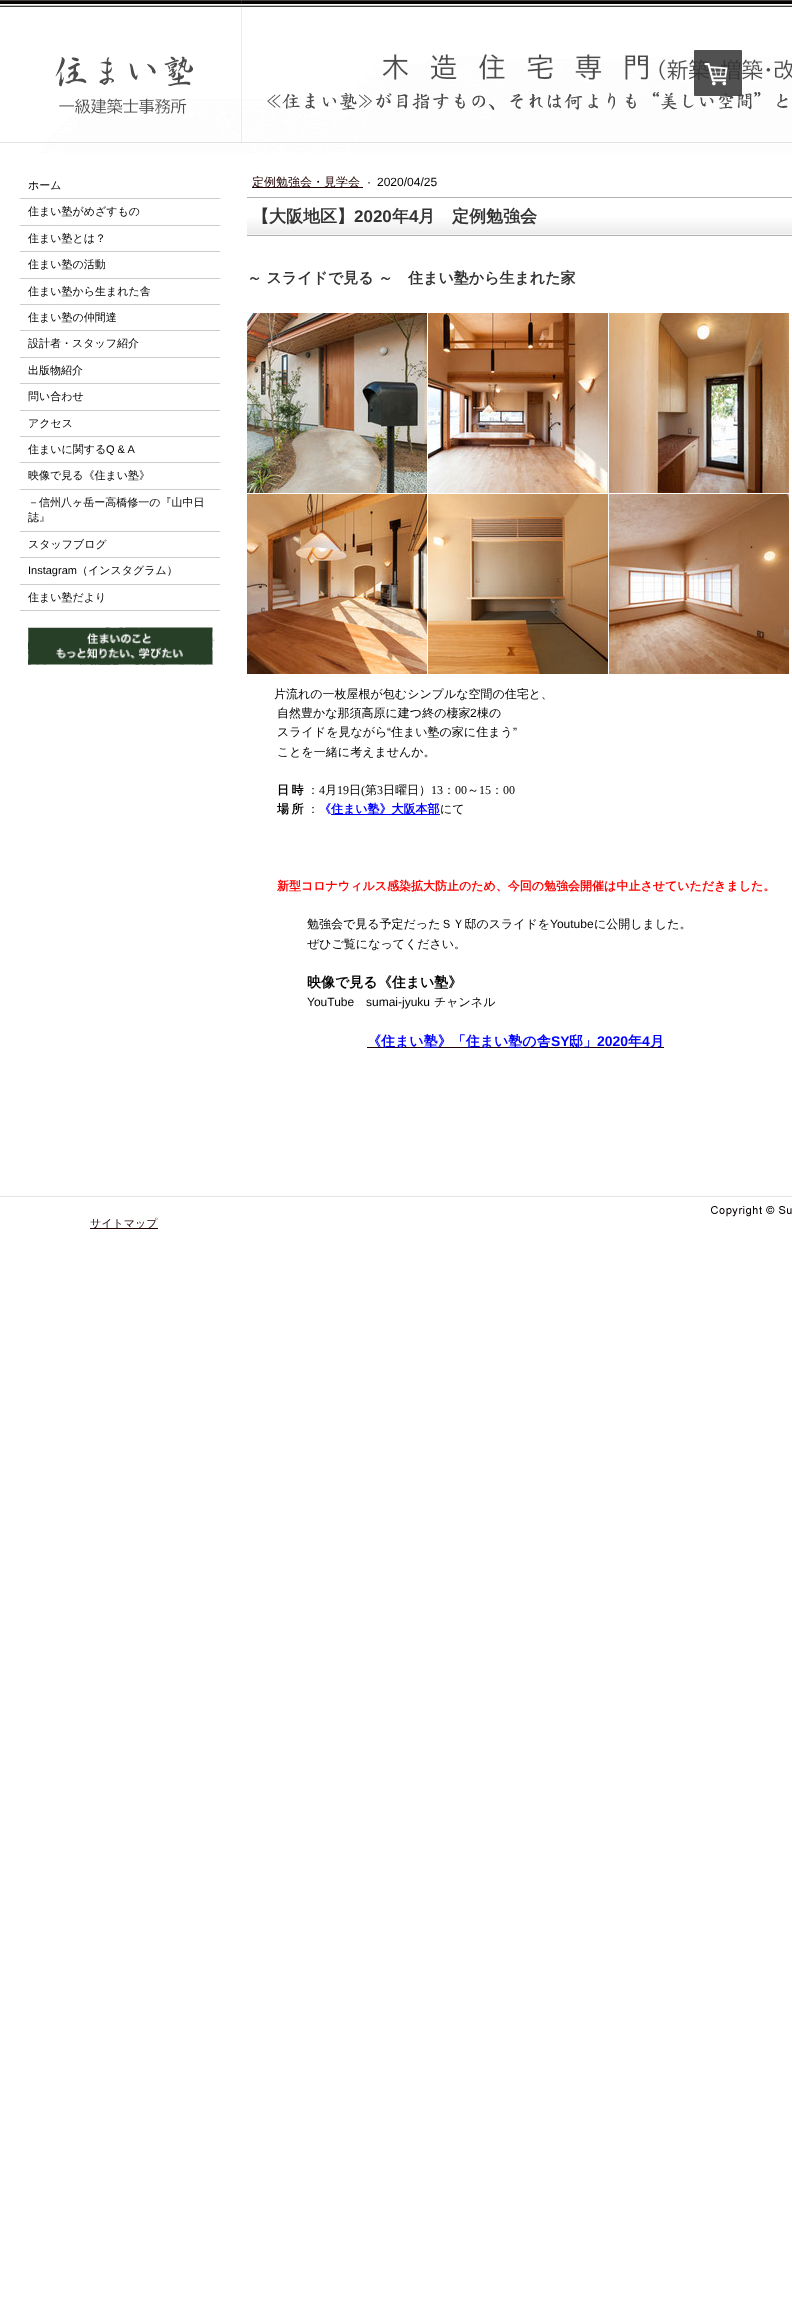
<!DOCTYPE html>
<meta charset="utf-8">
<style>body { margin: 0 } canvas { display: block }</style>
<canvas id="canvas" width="792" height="2303"></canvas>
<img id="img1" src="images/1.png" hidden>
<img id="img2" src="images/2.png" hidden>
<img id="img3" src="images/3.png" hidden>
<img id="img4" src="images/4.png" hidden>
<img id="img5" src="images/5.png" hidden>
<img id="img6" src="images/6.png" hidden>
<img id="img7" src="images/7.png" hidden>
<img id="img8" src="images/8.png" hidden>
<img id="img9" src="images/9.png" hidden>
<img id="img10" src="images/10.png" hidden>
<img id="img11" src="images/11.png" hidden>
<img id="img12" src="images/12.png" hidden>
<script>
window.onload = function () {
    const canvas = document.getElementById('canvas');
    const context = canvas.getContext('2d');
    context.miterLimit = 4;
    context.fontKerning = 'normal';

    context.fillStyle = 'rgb(255, 255, 255)';
    context.fillRect(0, 0, 792, 2303);
    context.drawImage(document.getElementById('img1'), 0, 0, 792, 143);
    context.drawImage(document.getElementById('img2'), 39, 0, 753, 153);
    context.fillStyle = 'rgba(51, 51, 51, 0.85)';
    context.beginPath();
    context.roundRect(694, 50, 48, 46, 1);
    context.fill();
    context.drawImage(document.getElementById('img3'), 704, 63, 24, 23);
    context.drawImage(document.getElementById('img4'), 28, 627, 187, 38);
    context.fillStyle = 'rgb(204, 204, 204)';
    context.fillRect(20, 198, 200, 1);
    context.fillRect(20, 225, 200, 1);
    context.fillRect(20, 251, 200, 1);
    context.fillRect(20, 278, 200, 1);
    context.fillRect(20, 304, 200, 1);
    context.fillRect(20, 330, 200, 1);
    context.fillRect(20, 357, 200, 1);
    context.fillRect(20, 383, 200, 1);
    context.fillRect(20, 410, 200, 1);
    context.fillRect(20, 436, 200, 1);
    context.fillRect(20, 462, 200, 1);
    context.fillRect(20, 489, 200, 1);
    context.fillRect(20, 531, 200, 1);
    context.fillRect(20, 557, 200, 1);
    context.fillRect(20, 584, 200, 1);
    context.fillRect(20, 610, 200, 1);
    context.fillStyle = 'rgb(32, 0, 1)';
    context.fillRect(252, 187, 111, 1);
    context.drawImage(document.getElementById('img5'), 247, 197, 545, 39);
    context.drawImage(document.getElementById('img6'), 247, 313, 180, 180);
    context.drawImage(document.getElementById('img7'), 428, 313, 180, 180);
    context.drawImage(document.getElementById('img8'), 609, 313, 180, 180);
    context.drawImage(document.getElementById('img9'), 247, 494, 180, 180);
    context.drawImage(document.getElementById('img10'), 428, 494, 180, 180);
    context.drawImage(document.getElementById('img11'), 609, 494, 180, 180);
    context.fillStyle = 'rgb(0, 0, 255)';
    context.fillRect(331, 814, 109, 1);
    context.fillStyle = 'rgb(32, 0, 1)';
    context.fillRect(367, 1047, 297, 1);
    context.drawImage(document.getElementById('img12'), 0, 1196, 792, 21);
    context.fillRect(90, 1228, 68, 1);
    context.font = '500 11px WenQuanYi Zen Hei';
    context.fillStyle = 'rgb(0, 0, 0)';
    context.fillText('ホーム', 28, 189);
    context.fillText('住まい塾がめざすもの', 28, 215);
    context.fillText('住まい塾とは？', 28, 242);
    context.fillText('住まい塾の活動', 28, 268);
    context.fillText('住まい塾から生まれた舎', 28, 295);
    context.fillText('住まい塾の仲間達', 28, 321);
    context.fillText('設計者・スタッフ紹介', 28, 347);
    context.fillText('出版物紹介', 28, 374);
    context.fillText('問い合わせ', 28, 400);
    context.fillText('アクセス', 28, 427);
    context.fillText('住まいに関する', 28, 453);
    context.font = '11px Liberation Sans';
    context.fillText('Q & A', 106, 453);
    context.font = '500 11px WenQuanYi Zen Hei';
    context.fillText('映像で見る《住まい塾》', 28, 479);
    context.fillText('－信州八ヶ岳ー高橋修一の『山中日', 28, 506);
    context.fillText('誌』', 28, 521);
    context.fillText('スタッフブログ', 28, 548);
    context.font = '11px Liberation Sans';
    context.fillText('Instagram', 28, 574);
    context.font = '500 11px WenQuanYi Zen Hei';
    context.fillText('（インスタグラム）', 77, 574);
    context.fillText('住まい塾だより', 28, 601);
    context.font = '500 12px WenQuanYi Zen Hei';
    context.fillStyle = 'rgb(32, 0, 1)';
    context.fillText('定例勉強会・見学会', 252, 186);
    context.font = '12px Liberation Sans';
    context.fillStyle = 'rgb(0, 0, 0)';
    context.fillText('·', 367, 186);
    context.fillText('2020/04/25', 377, 186);
    context.font = 'bold 17px WenQuanYi Zen Hei';
    context.fillStyle = 'rgb(51, 51, 51)';
    context.fillText('【大阪地区】', 252, 222);
    context.font = 'bold 17px Liberation Sans';
    context.fillText('2020', 354, 222);
    context.font = 'bold 17px WenQuanYi Zen Hei';
    context.fillText('年', 392, 222);
    context.font = 'bold 17px Liberation Sans';
    context.fillText('4', 409, 222);
    context.font = 'bold 17px WenQuanYi Zen Hei';
    context.fillText('月　定例勉強会', 418, 222);
    context.font = 'bold 15px WenQuanYi Zen Hei';
    context.fillText('～ スライドで見る ～　住まい塾から生まれた家', 247, 283);
    context.font = '500 12px WenQuanYi Zen Hei';
    context.fillStyle = 'rgb(0, 0, 0)';
    context.fillText('片流れの一枚屋根が包むシンプルな空間の住宅と、', 274, 698);
    context.fillText('自然豊かな那須高原に建つ終の棲家', 277, 717);
    context.font = '12px Liberation Sans';
    context.fillText('2', 470, 717);
    context.font = '500 12px WenQuanYi Zen Hei';
    context.fillText('棟の', 477, 717);
    context.fillText('スライドを見ながら', 277, 736);
    context.font = '12px Liberation Sans';
    context.fillText('“', 387, 736);
    context.font = '500 12px WenQuanYi Zen Hei';
    context.fillText('住まい塾の家に住まう', 391, 736);
    context.font = '12px Liberation Sans';
    context.fillText('”', 513, 736);
    context.font = '500 12px WenQuanYi Zen Hei';
    context.fillText('ことを一緒に考えませんか。', 277, 756);
    context.wordSpacing = '-1px';
    context.font = 'bold 12px WenQuanYi Zen Hei';
    context.fillText('日 時', 277, 794);
    context.wordSpacing = '0px';
    context.font = '500 12px WenQuanYi Zen Hei';
    context.fillText('：', 307, 794);
    context.font = '12px Liberation Serif';
    context.fillText('4', 319, 794);
    context.font = '500 12px WenQuanYi Zen Hei';
    context.fillText('月', 325, 794);
    context.font = '12px Liberation Serif';
    context.fillText('19', 337, 794);
    context.font = '500 12px WenQuanYi Zen Hei';
    context.fillText('日', 349, 794);
    context.font = '12px Liberation Serif';
    context.fillText('(', 361, 794);
    context.font = '500 12px WenQuanYi Zen Hei';
    context.fillText('第', 365, 794);
    context.font = '12px Liberation Serif';
    context.fillText('3', 377, 794);
    context.font = '500 12px WenQuanYi Zen Hei';
    context.fillText('日曜日）', 383, 794);
    context.font = '12px Liberation Serif';
    context.fillText('13', 431, 794);
    context.font = '500 12px WenQuanYi Zen Hei';
    context.fillText('：', 443, 794);
    context.font = '12px Liberation Serif';
    context.fillText('00', 455, 794);
    context.font = '500 12px WenQuanYi Zen Hei';
    context.fillText('～', 467, 794);
    context.font = '12px Liberation Serif';
    context.fillText('15', 479, 794);
    context.font = '500 12px WenQuanYi Zen Hei';
    context.fillText('：', 491, 794);
    context.font = '12px Liberation Serif';
    context.fillText('00', 503, 794);
    context.wordSpacing = '-1px';
    context.font = 'bold 12px WenQuanYi Zen Hei';
    context.fillText('場 所', 277, 813);
    context.wordSpacing = '0px';
    context.font = '500 12px WenQuanYi Zen Hei';
    context.fillText('：', 307, 813);
    context.font = 'bold 12px WenQuanYi Zen Hei';
    context.fillStyle = 'rgb(0, 0, 255)';
    context.fillText('《', 319, 813);
    context.fillText('住まい塾》大阪本部', 331, 813);
    context.font = '500 12px WenQuanYi Zen Hei';
    context.fillStyle = 'rgb(0, 0, 0)';
    context.fillText('にて', 440, 813);
    context.font = 'bold 12px WenQuanYi Zen Hei';
    context.fillStyle = 'rgb(255, 0, 0)';
    context.fillText('新型コロナウィルス感染拡大防止のため、今回の勉強会開催は中止させていただきました。', 277, 890);
    context.font = '500 12px WenQuanYi Zen Hei';
    context.fillStyle = 'rgb(0, 0, 0)';
    context.fillText('勉強会で見る予定だったＳＹ邸のスライドを', 307, 928);
    context.font = '12px Liberation Sans';
    context.fillText('Youtube', 550, 928);
    context.font = '500 12px WenQuanYi Zen Hei';
    context.fillText('に公開しました。', 594, 928);
    context.fillText('ぜひご覧になってください。', 307, 948);
    context.font = 'bold 14px WenQuanYi Zen Hei';
    context.fillText('映像で見る《住まい塾》', 307, 987);
    context.font = '12px Liberation Sans';
    context.fillText('YouTube', 307, 1006);
    context.fillText('sumai-jyuku', 366, 1006);
    context.font = '500 12px WenQuanYi Zen Hei';
    context.fillText('チャンネル', 434, 1006);
    context.font = 'bold 14px WenQuanYi Zen Hei';
    context.fillStyle = 'rgb(0, 0, 255)';
    context.fillText('《住まい塾》「住まい塾の舎', 367, 1046);
    context.font = 'bold 14px Liberation Sans';
    context.fillText('SY', 551, 1046);
    context.font = 'bold 14px WenQuanYi Zen Hei';
    context.fillText('邸」', 569, 1046);
    context.font = 'bold 14px Liberation Sans';
    context.fillText('2020', 597, 1046);
    context.font = 'bold 14px WenQuanYi Zen Hei';
    context.fillText('年', 628, 1046);
    context.font = 'bold 14px Liberation Sans';
    context.fillText('4', 642, 1046);
    context.font = 'bold 14px WenQuanYi Zen Hei';
    context.fillText('月', 650, 1046);
    context.font = '500 11px WenQuanYi Zen Hei';
    context.fillStyle = 'rgb(32, 0, 1)';
    context.fillText('サイトマップ', 90, 1227);
};
</script>
